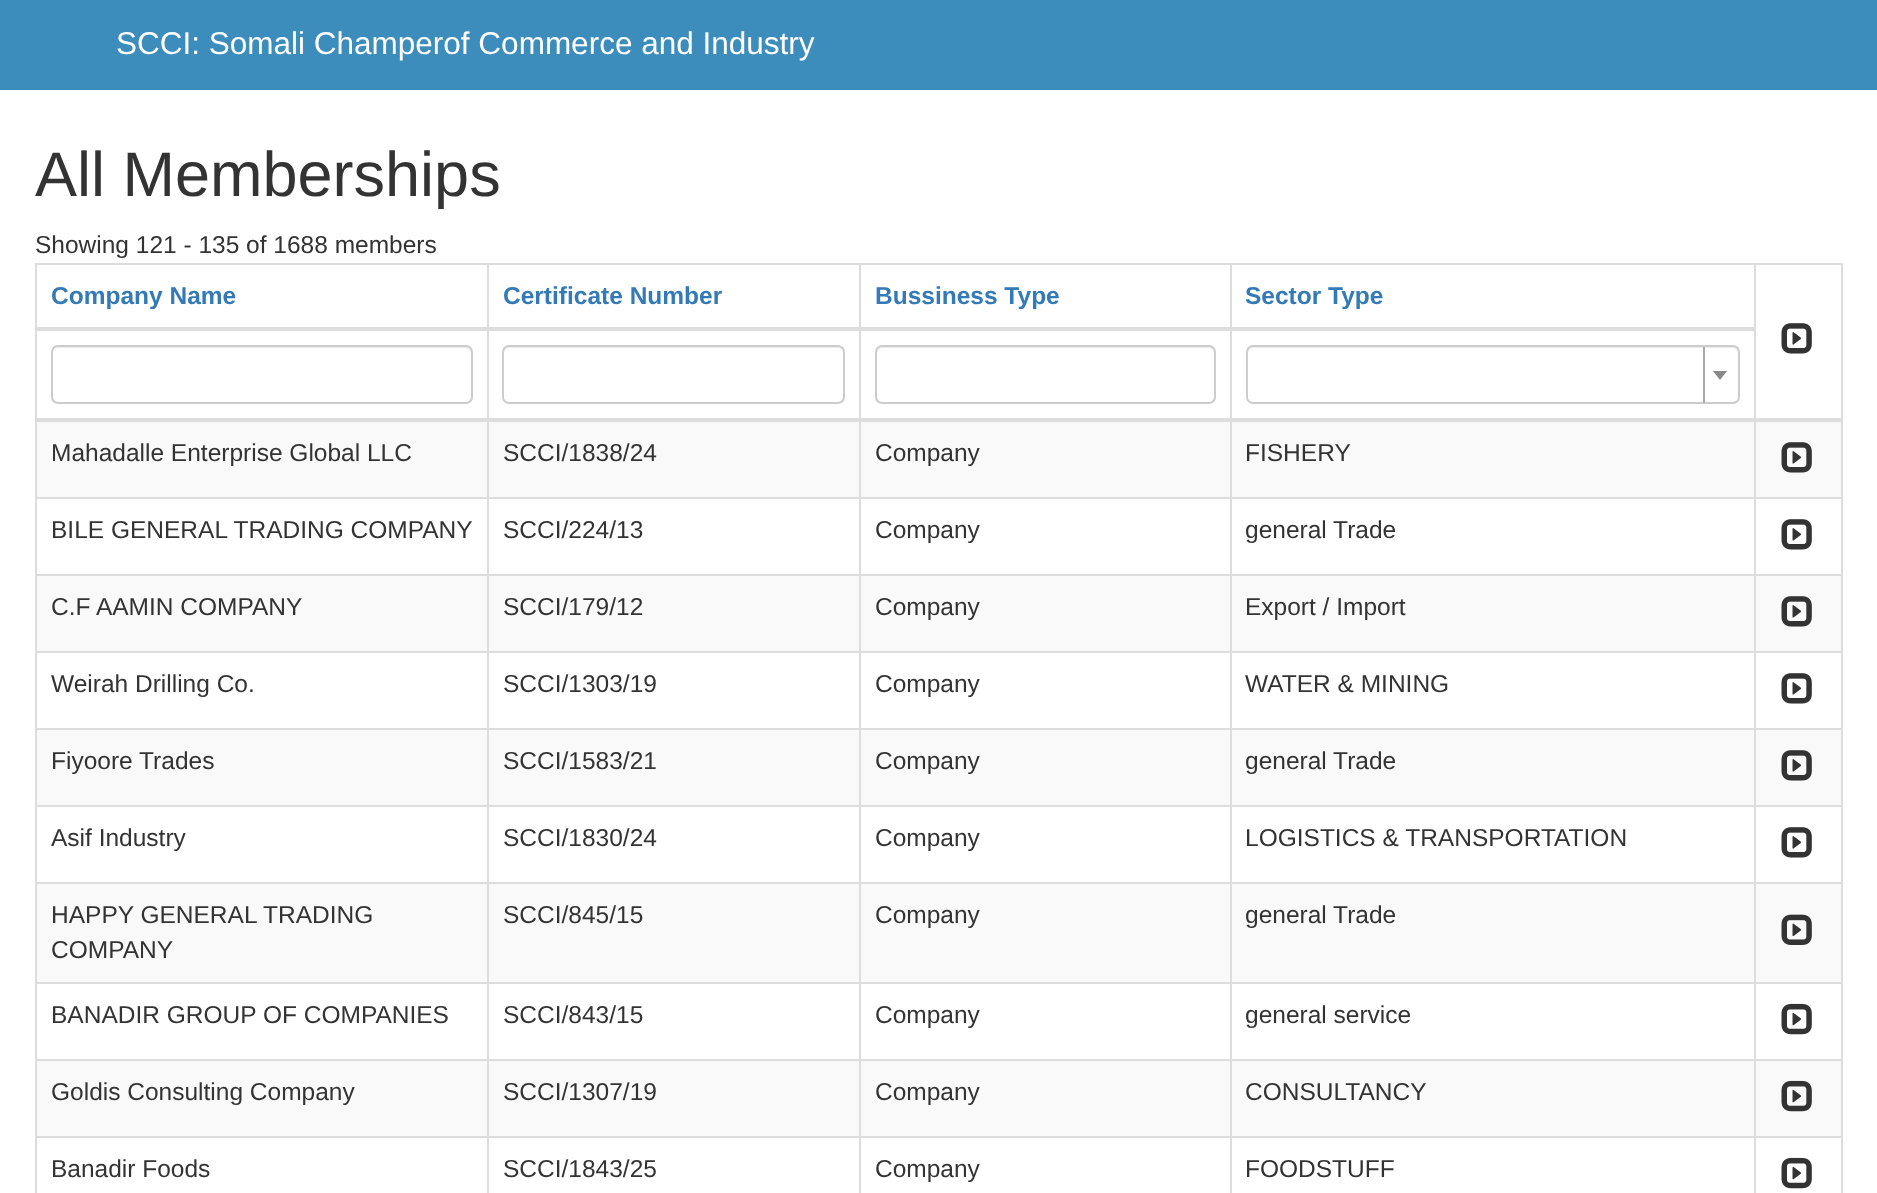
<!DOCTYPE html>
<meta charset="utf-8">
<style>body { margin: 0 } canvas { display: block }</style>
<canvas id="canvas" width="1877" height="1193"></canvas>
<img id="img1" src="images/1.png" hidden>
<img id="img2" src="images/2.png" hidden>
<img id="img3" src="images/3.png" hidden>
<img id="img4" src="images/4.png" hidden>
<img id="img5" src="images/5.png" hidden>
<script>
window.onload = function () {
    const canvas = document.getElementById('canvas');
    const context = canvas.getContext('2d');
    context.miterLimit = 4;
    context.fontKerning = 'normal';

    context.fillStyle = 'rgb(255, 255, 255)';
    context.fillRect(0, 0, 1877, 1193);
    context.fillStyle = 'rgb(60, 141, 188)';
    context.fillRect(0, 0, 1877, 90);
    context.fillStyle = 'rgb(221, 221, 221)';
    context.fillRect(35, 263, 1808, 2);
    context.fillRect(1841, 263, 2, 930);
    context.fillRect(35, 263, 2, 930);
    context.fillStyle = 'rgb(249, 249, 249)';
    context.fillRect(37, 422, 1804, 75);
    context.fillStyle = 'rgb(221, 221, 221)';
    context.fillRect(1754, 497, 89, 2);
    context.fillRect(1754, 574, 89, 2);
    context.fillStyle = 'rgb(249, 249, 249)';
    context.fillRect(37, 576, 1804, 75);
    context.fillStyle = 'rgb(221, 221, 221)';
    context.fillRect(1754, 651, 89, 2);
    context.fillRect(1754, 728, 89, 2);
    context.fillStyle = 'rgb(249, 249, 249)';
    context.fillRect(37, 730, 1804, 75);
    context.fillStyle = 'rgb(221, 221, 221)';
    context.fillRect(1754, 805, 89, 2);
    context.fillRect(1754, 882, 89, 2);
    context.fillStyle = 'rgb(249, 249, 249)';
    context.fillRect(37, 884, 1804, 98);
    context.fillStyle = 'rgb(221, 221, 221)';
    context.fillRect(1754, 982, 89, 2);
    context.fillRect(1754, 1059, 89, 2);
    context.fillStyle = 'rgb(249, 249, 249)';
    context.fillRect(37, 1061, 1804, 75);
    context.fillStyle = 'rgb(221, 221, 221)';
    context.fillRect(1754, 1136, 89, 2);
    context.fillRect(1754, 1136, 2, 57);
    context.fillRect(1230, 1136, 525, 2);
    context.fillRect(1754, 1059, 2, 79);
    context.fillRect(1230, 1059, 525, 2);
    context.fillRect(1754, 982, 2, 79);
    context.fillRect(1230, 982, 525, 2);
    context.fillRect(1754, 882, 2, 102);
    context.fillRect(1230, 882, 525, 2);
    context.fillRect(1754, 805, 2, 79);
    context.fillRect(1230, 805, 525, 2);
    context.fillRect(1754, 728, 2, 79);
    context.fillRect(1230, 728, 525, 2);
    context.fillRect(1754, 651, 2, 79);
    context.fillRect(1230, 651, 525, 2);
    context.fillRect(1754, 574, 2, 79);
    context.fillRect(1230, 574, 525, 2);
    context.fillRect(1754, 497, 2, 79);
    context.fillRect(1230, 497, 525, 2);
    context.fillRect(1230, 1136, 2, 57);
    context.fillRect(859, 1136, 373, 2);
    context.fillRect(1230, 1059, 2, 79);
    context.fillRect(859, 1059, 373, 2);
    context.fillRect(1230, 982, 2, 79);
    context.fillRect(859, 982, 373, 2);
    context.fillRect(1230, 882, 2, 102);
    context.fillRect(859, 882, 373, 2);
    context.fillRect(1230, 805, 2, 79);
    context.fillRect(859, 805, 373, 2);
    context.fillRect(1230, 728, 2, 79);
    context.fillRect(859, 728, 373, 2);
    context.fillRect(1230, 651, 2, 79);
    context.fillRect(859, 651, 373, 2);
    context.fillRect(1230, 574, 2, 79);
    context.fillRect(859, 574, 373, 2);
    context.fillRect(1230, 497, 2, 79);
    context.fillRect(859, 497, 373, 2);
    context.fillRect(859, 1136, 2, 57);
    context.fillRect(487, 1136, 374, 2);
    context.fillRect(859, 1059, 2, 79);
    context.fillRect(487, 1059, 374, 2);
    context.fillRect(859, 982, 2, 79);
    context.fillRect(487, 982, 374, 2);
    context.fillRect(859, 882, 2, 102);
    context.fillRect(487, 882, 374, 2);
    context.fillRect(859, 805, 2, 79);
    context.fillRect(487, 805, 374, 2);
    context.fillRect(859, 728, 2, 79);
    context.fillRect(487, 728, 374, 2);
    context.fillRect(859, 651, 2, 79);
    context.fillRect(487, 651, 374, 2);
    context.fillRect(859, 574, 2, 79);
    context.fillRect(487, 574, 374, 2);
    context.fillRect(859, 497, 2, 79);
    context.fillRect(487, 497, 374, 2);
    context.fillRect(487, 1136, 2, 57);
    context.fillRect(35, 1136, 453, 2);
    context.fillRect(487, 1059, 2, 79);
    context.fillRect(35, 1059, 453, 2);
    context.fillRect(487, 982, 2, 79);
    context.fillRect(35, 982, 453, 2);
    context.fillRect(487, 882, 2, 102);
    context.fillRect(35, 882, 453, 2);
    context.fillRect(487, 805, 2, 79);
    context.fillRect(35, 805, 453, 2);
    context.fillRect(487, 728, 2, 79);
    context.fillRect(35, 728, 453, 2);
    context.fillRect(487, 651, 2, 79);
    context.fillRect(35, 651, 453, 2);
    context.fillRect(487, 574, 2, 79);
    context.fillRect(35, 574, 453, 2);
    context.fillRect(487, 497, 2, 79);
    context.fillRect(35, 497, 453, 2);
    context.fillRect(487, 263, 2, 236);
    context.fillRect(859, 263, 2, 236);
    context.fillRect(1230, 263, 2, 236);
    context.fillRect(1754, 263, 2, 236);
    context.fillRect(35, 327, 1720, 4);
    context.drawImage(document.getElementById('img1'), 1781, 323, 31, 31);
    context.fillRect(35, 418, 1808, 4);
    context.fillStyle = 'rgb(236, 236, 236)';
    context.beginPath();
    context.moveTo(1253, 348);
    context.lineTo(1732, 348);
    context.bezierCurveTo(1735, 348, 1738, 351, 1738, 354);
    context.lineTo(1738, 352);
    context.bezierCurveTo(1738, 349, 1736, 347, 1733, 347);
    context.lineTo(1253, 347);
    context.bezierCurveTo(1250, 347, 1248, 349, 1248, 352);
    context.lineTo(1248, 354);
    context.bezierCurveTo(1248, 351, 1250, 348, 1253, 348);
    context.closePath();
    context.fill();
    context.beginPath();
    context.roundRect(1247, 346, 492, 57, 6);
    context.strokeStyle = 'rgb(204, 204, 204)';
    context.lineWidth = 2;
    context.stroke();
    context.fillStyle = 'rgb(170, 170, 170)';
    context.fillRect(1703, 347, 2, 56);
    context.fillStyle = 'rgb(136, 136, 136)';
    context.beginPath();
    context.moveTo(1713, 371);
    context.lineTo(1727, 371);
    context.lineTo(1720, 380);
    context.closePath();
    context.fill();
    context.fillStyle = 'rgb(236, 236, 236)';
    context.beginPath();
    context.moveTo(58, 348);
    context.lineTo(466, 348);
    context.bezierCurveTo(468, 348, 471, 351, 471, 354);
    context.lineTo(471, 352);
    context.bezierCurveTo(471, 349, 469, 347, 466, 347);
    context.lineTo(58, 347);
    context.bezierCurveTo(56, 347, 54, 349, 53, 351);
    context.bezierCurveTo(54, 349, 56, 348, 58, 348);
    context.closePath();
    context.fill();
    context.beginPath();
    context.roundRect(52, 346, 420, 57, 6);
    context.stroke();
    context.beginPath();
    context.moveTo(509, 348);
    context.lineTo(838, 348);
    context.bezierCurveTo(841, 348, 844, 351, 844, 354);
    context.lineTo(844, 352);
    context.bezierCurveTo(844, 349, 842, 347, 839, 347);
    context.lineTo(509, 347);
    context.bezierCurveTo(506, 347, 504, 349, 504, 352);
    context.lineTo(504, 354);
    context.bezierCurveTo(504, 351, 506, 348, 509, 348);
    context.closePath();
    context.fill();
    context.beginPath();
    context.roundRect(503, 346, 341, 57, 6);
    context.stroke();
    context.beginPath();
    context.moveTo(882, 348);
    context.lineTo(1209, 348);
    context.bezierCurveTo(1212, 348, 1214, 351, 1214, 354);
    context.lineTo(1214, 399);
    context.lineTo(1213, 402);
    context.bezierCurveTo(1214, 401, 1215, 399, 1215, 398);
    context.lineTo(1215, 352);
    context.bezierCurveTo(1215, 349, 1213, 347, 1210, 347);
    context.lineTo(882, 347);
    context.bezierCurveTo(879, 347, 877, 349, 877, 352);
    context.lineTo(877, 354);
    context.bezierCurveTo(877, 351, 879, 348, 882, 348);
    context.closePath();
    context.fill();
    context.beginPath();
    context.roundRect(876, 346, 339, 57, 6);
    context.stroke();
    context.drawImage(document.getElementById('img2'), 1781, 442, 31, 31);
    context.drawImage(document.getElementById('img1'), 1781, 519, 31, 31);
    context.drawImage(document.getElementById('img2'), 1781, 596, 31, 31);
    context.drawImage(document.getElementById('img1'), 1781, 673, 31, 31);
    context.drawImage(document.getElementById('img2'), 1781, 750, 31, 31);
    context.drawImage(document.getElementById('img1'), 1781, 827, 31, 31);
    context.drawImage(document.getElementById('img3'), 1781, 914, 31, 31);
    context.drawImage(document.getElementById('img4'), 1781, 1003, 31, 32);
    context.drawImage(document.getElementById('img5'), 1781, 1080, 31, 32);
    context.drawImage(document.getElementById('img4'), 1781, 1157, 31, 32);
    context.font = '31.5px Liberation Sans';
    context.fillStyle = 'rgb(255, 255, 255)';
    context.fillText('SCCI: Somali Champerof Commerce and Industry', 116, 54);
    context.font = '63px Liberation Sans';
    context.fillStyle = 'rgb(51, 51, 51)';
    context.fillText('All Memberships', 35, 196);
    context.font = '24.5px Liberation Sans';
    context.fillText('Showing 121 - 135 of 1688 members', 35, 253);
    context.font = 'bold 24.5px Liberation Sans';
    context.fillStyle = 'rgb(51, 122, 183)';
    context.fillText('Company Name', 51, 304);
    context.fillText('Certificate Number', 503, 304);
    context.fillText('Bussiness Type', 875, 304);
    context.fillText('Sector Type', 1245, 304);
    context.font = '24.5px Liberation Sans';
    context.fillStyle = 'rgb(51, 51, 51)';
    context.fillText('Mahadalle Enterprise Global LLC', 51, 461);
    context.fillText('SCCI/1838/24', 503, 461);
    context.fillText('Company', 875, 461);
    context.fillText('FISHERY', 1245, 461);
    context.fillText('BILE GENERAL TRADING COMPANY', 51, 538);
    context.fillText('SCCI/224/13', 503, 538);
    context.fillText('Company', 875, 538);
    context.fillText('general Trade', 1245, 538);
    context.fillText('C.F AAMIN COMPANY', 51, 615);
    context.fillText('SCCI/179/12', 503, 615);
    context.fillText('Company', 875, 615);
    context.fillText('Export / Import', 1245, 615);
    context.fillText('Weirah Drilling Co.', 51, 692);
    context.fillText('SCCI/1303/19', 503, 692);
    context.fillText('Company', 875, 692);
    context.fillText('WATER & MINING', 1245, 692);
    context.fillText('Fiyoore Trades', 51, 769);
    context.fillText('SCCI/1583/21', 503, 769);
    context.fillText('Company', 875, 769);
    context.fillText('general Trade', 1245, 769);
    context.fillText('Asif Industry', 51, 846);
    context.fillText('SCCI/1830/24', 503, 846);
    context.fillText('Company', 875, 846);
    context.fillText('LOGISTICS & TRANSPORTATION', 1245, 846);
    context.fillText('HAPPY GENERAL TRADING', 51, 923);
    context.fillText('COMPANY', 51, 958);
    context.fillText('SCCI/845/15', 503, 923);
    context.fillText('Company', 875, 923);
    context.fillText('general Trade', 1245, 923);
    context.fillText('BANADIR GROUP OF COMPANIES', 51, 1023);
    context.fillText('SCCI/843/15', 503, 1023);
    context.fillText('Company', 875, 1023);
    context.fillText('general service', 1245, 1023);
    context.fillText('Goldis Consulting Company', 51, 1100);
    context.fillText('SCCI/1307/19', 503, 1100);
    context.fillText('Company', 875, 1100);
    context.fillText('CONSULTANCY', 1245, 1100);
    context.fillText('Banadir Foods', 51, 1177);
    context.fillText('SCCI/1843/25', 503, 1177);
    context.fillText('Company', 875, 1177);
    context.fillText('FOODSTUFF', 1245, 1177);
};
</script>
